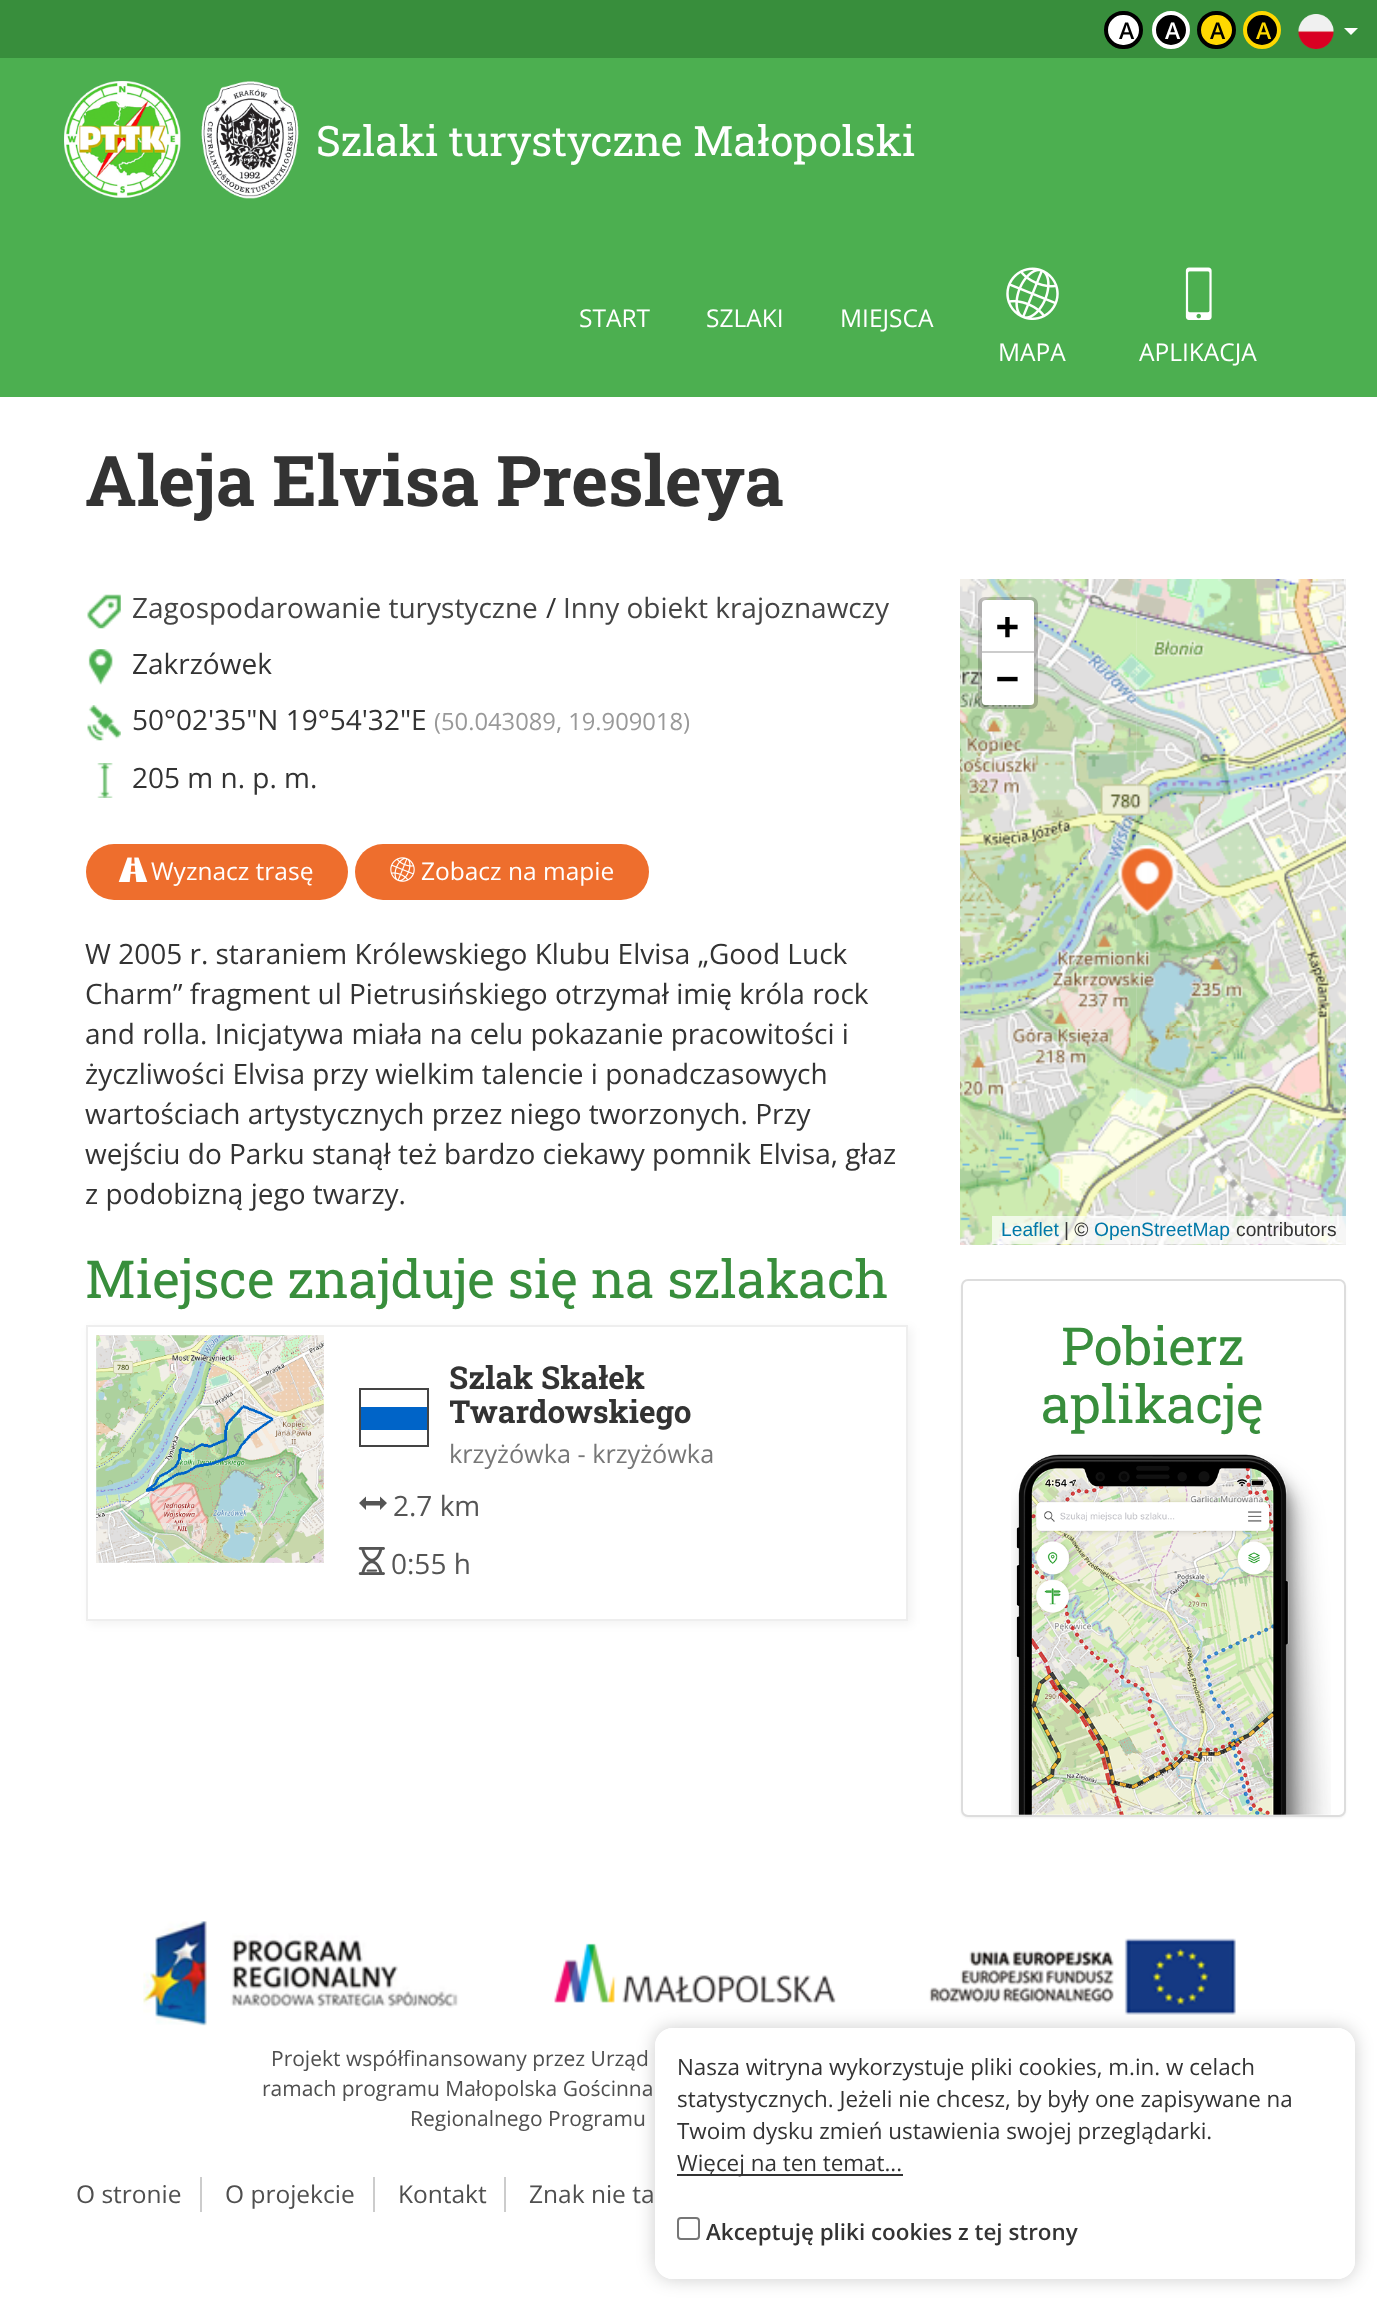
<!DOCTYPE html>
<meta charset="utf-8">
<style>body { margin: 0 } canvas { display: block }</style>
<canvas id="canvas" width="1377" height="2300"></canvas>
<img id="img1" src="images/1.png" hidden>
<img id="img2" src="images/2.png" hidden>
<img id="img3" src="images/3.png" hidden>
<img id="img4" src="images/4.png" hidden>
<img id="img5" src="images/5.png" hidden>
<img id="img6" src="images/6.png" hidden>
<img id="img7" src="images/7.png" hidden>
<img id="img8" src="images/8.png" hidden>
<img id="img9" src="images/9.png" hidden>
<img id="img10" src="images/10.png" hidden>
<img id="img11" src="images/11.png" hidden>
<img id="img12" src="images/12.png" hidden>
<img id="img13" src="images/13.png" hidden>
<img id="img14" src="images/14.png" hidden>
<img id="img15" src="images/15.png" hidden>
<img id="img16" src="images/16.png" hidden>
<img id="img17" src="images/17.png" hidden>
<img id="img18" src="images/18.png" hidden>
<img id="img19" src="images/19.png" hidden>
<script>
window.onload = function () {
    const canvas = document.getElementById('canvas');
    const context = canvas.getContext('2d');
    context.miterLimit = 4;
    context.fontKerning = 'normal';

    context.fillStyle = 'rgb(255, 255, 255)';
    context.fillRect(0, 0, 1377, 2300);
    context.fillStyle = 'rgb(76, 175, 80)';
    context.fillRect(0, 58, 1377, 339);
    context.fillStyle = 'rgb(56, 142, 60)';
    context.fillRect(0, 0, 1377, 58);
    context.fillStyle = 'rgb(255, 255, 255)';
    context.beginPath();
    context.roundRect(1106, 13, 35, 34, 17);
    context.fill();
    context.strokeStyle = 'rgb(0, 0, 0)';
    context.lineWidth = 4;
    context.stroke();
    context.fillStyle = 'rgb(0, 0, 0)';
    context.beginPath();
    context.arc(1171, 30, 17, 0, 2 * Math.PI);
    context.fill();
    context.strokeStyle = 'rgb(255, 255, 255)';
    context.stroke();
    context.fillStyle = 'rgb(255, 216, 0)';
    context.beginPath();
    context.roundRect(1199, 13, 35, 34, 17);
    context.fill();
    context.strokeStyle = 'rgb(0, 0, 0)';
    context.stroke();
    context.fillStyle = 'rgb(0, 0, 0)';
    context.beginPath();
    context.arc(1262, 30, 17, 0, 2 * Math.PI);
    context.fill();
    context.strokeStyle = 'rgb(255, 216, 0)';
    context.stroke();
    context.drawImage(document.getElementById('img1'), 1298, 14, 36, 35);
    context.fillStyle = 'rgb(255, 255, 255)';
    context.beginPath();
    context.moveTo(1344, 28);
    context.lineTo(1358, 28);
    context.lineTo(1351, 35);
    context.closePath();
    context.fill();
    context.drawImage(document.getElementById('img2'), 64, 81, 235, 118);
    context.drawImage(document.getElementById('img3'), 1006, 267, 53, 53);
    context.drawImage(document.getElementById('img4'), 1185, 267, 27, 53);
    context.drawImage(document.getElementById('img5'), 87, 594, 34, 35);
    context.drawImage(document.getElementById('img6'), 88, 649, 25, 36);
    context.drawImage(document.getElementById('img7'), 87, 705, 34, 36);
    context.drawImage(document.getElementById('img8'), 97, 763, 16, 35);
    context.fillStyle = 'rgb(238, 110, 45)';
    context.beginPath();
    context.roundRect(86, 844, 262, 56, 28);
    context.fill();
    context.drawImage(document.getElementById('img9'), 118, 857, 30, 25);
    context.beginPath();
    context.roundRect(355, 844, 294, 56, 28);
    context.fill();
    context.drawImage(document.getElementById('img10'), 390, 857, 25, 25);
    context.fillStyle = 'rgba(0, 0, 0, 0.05)';
    context.filter = 'blur(5px)';
    context.beginPath();
    context.rect(89, 1328, 823, 296);
    context.fill();
    context.filter = 'none';
    context.fillStyle = 'rgb(255, 255, 255)';
    context.beginPath();
    context.rect(87, 1326, 820, 294);
    context.fill();
    context.strokeStyle = 'rgb(238, 238, 238)';
    context.lineWidth = 2;
    context.stroke();
    context.fillStyle = 'rgb(238, 238, 238)';
    context.fillRect(96, 1335, 228, 228);
    context.drawImage(document.getElementById('img11'), 96, 1335, 228, 228);
    context.strokeStyle = 'rgb(68, 68, 68)';
    context.strokeRect(360, 1389, 68, 57);
    context.fillStyle = 'rgb(0, 100, 200)';
    context.fillRect(361, 1407, 66, 23);
    context.fillStyle = 'rgb(85, 85, 85)';
    context.beginPath();
    context.moveTo(359, 1503);
    context.lineTo(366, 1496.5);
    context.lineTo(366, 1501);
    context.lineTo(380, 1501);
    context.lineTo(380, 1496.5);
    context.lineTo(387, 1503);
    context.lineTo(380, 1510);
    context.lineTo(380, 1505.5);
    context.lineTo(366, 1505.5);
    context.lineTo(366, 1510);
    context.closePath();
    context.fill();
    context.drawImage(document.getElementById('img12'), 358, 1547, 27, 28);
    context.drawImage(document.getElementById('img13'), 960, 579, 176, 447);
    context.drawImage(document.getElementById('img14'), 1135, 579, 211, 447);
    context.drawImage(document.getElementById('img15'), 960, 1026, 176, 219);
    context.drawImage(document.getElementById('img16'), 1135, 1026, 211, 219);
    context.drawImage(document.getElementById('img17'), 1117, 845, 60, 71);
    context.beginPath();
    context.roundRect(980, 599, 56, 108, 5);
    context.strokeStyle = 'rgba(0, 0, 0, 0.2)';
    context.lineWidth = 4;
    context.stroke();
    context.fillStyle = 'rgb(255, 255, 255)';
    context.beginPath();
    context.roundRect(982, 600, 52, 53, [4, 4, 0, 0]);
    context.fill();
    context.fillStyle = 'rgb(204, 204, 204)';
    context.fillRect(982, 651, 52, 2);
    context.fillStyle = 'rgb(255, 255, 255)';
    context.beginPath();
    context.roundRect(982, 653, 52, 52, [0, 0, 4, 4]);
    context.fill();
    context.fillStyle = 'rgba(255, 255, 255, 0.7)';
    context.fillRect(992, 1216, 354, 28);
    context.fillStyle = 'rgba(0, 0, 0, 0.05)';
    context.filter = 'blur(1px)';
    context.beginPath();
    context.roundRect(961, 1281, 385, 537, 7);
    context.fill();
    context.filter = 'none';
    context.fillStyle = 'rgb(255, 255, 255)';
    context.beginPath();
    context.roundRect(962, 1280, 383, 536, 6);
    context.fill();
    context.strokeStyle = 'rgb(221, 221, 221)';
    context.lineWidth = 2;
    context.stroke();
    context.drawImage(document.getElementById('img18'), 1011, 1454, 320, 361);
    context.drawImage(document.getElementById('img19'), 143, 1921, 1093, 105);
    context.fillStyle = 'rgb(204, 204, 204)';
    context.fillRect(200, 2177, 2, 35);
    context.fillRect(373, 2177, 2, 35);
    context.fillRect(504, 2177, 2, 35);
    context.save();
    context.beginPath();
    context.moveTo(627, 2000);
    context.lineTo(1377, 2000);
    context.lineTo(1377, 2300);
    context.lineTo(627, 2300);
    context.closePath();
    context.moveTo(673, 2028);
    context.lineTo(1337, 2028);
    context.bezierCurveTo(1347, 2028, 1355, 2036, 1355, 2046);
    context.lineTo(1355, 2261);
    context.bezierCurveTo(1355, 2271, 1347, 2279, 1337, 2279);
    context.lineTo(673, 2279);
    context.bezierCurveTo(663, 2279, 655, 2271, 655, 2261);
    context.lineTo(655, 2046);
    context.bezierCurveTo(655, 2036, 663, 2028, 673, 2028);
    context.closePath();
    context.clip('evenodd');
    context.fillStyle = 'rgba(0, 0, 0, 0.2)';
    context.filter = 'blur(9px)';
    context.beginPath();
    context.roundRect(655, 2028, 700, 251, 18);
    context.fill();
    context.filter = 'none';
    context.restore();
    context.fillStyle = 'rgba(255, 255, 255, 0.95)';
    context.beginPath();
    context.roundRect(655, 2028, 700, 251, 18);
    context.fill();
    context.fillStyle = 'rgb(51, 51, 51)';
    context.fillRect(677, 2174, 226, 2);
    context.beginPath();
    context.roundRect(678, 2218, 21, 21, 3);
    context.strokeStyle = 'rgb(118, 118, 118)';
    context.stroke();
    context.font = '600 23px Open Sans';
    context.fillStyle = 'rgb(0, 0, 0)';
    context.fillText('A', 1119, 39);
    context.fillStyle = 'rgb(255, 255, 255)';
    context.fillText('A', 1165, 39);
    context.fillStyle = 'rgb(0, 0, 0)';
    context.fillText('A', 1210, 39);
    context.fillStyle = 'rgb(255, 216, 0)';
    context.fillText('A', 1256, 39);
    context.font = '42px Roboto Slab';
    context.fillStyle = 'rgb(255, 255, 255)';
    context.fillText('Szlaki turystyczne Małopolski', 316, 156);
    context.font = '24.5px Open Sans';
    context.fillText('START', 579, 327);
    context.fillText('SZLAKI', 706, 327);
    context.fillText('MIEJSCA', 840, 327);
    context.fillText('MAPA', 998, 361);
    context.fillText('APLIKACJA', 1139, 361);
    context.font = 'bold 70px Roboto Slab';
    context.fillStyle = 'rgb(51, 51, 51)';
    context.fillText('Aleja Elvisa Presleya', 85, 506);
    context.font = '28px Open Sans';
    context.fillStyle = 'rgb(68, 68, 68)';
    context.fillText('Zagospodarowanie turystyczne', 132, 618);
    context.fillStyle = 'rgb(51, 51, 51)';
    context.fillText('/', 546, 618);
    context.fillStyle = 'rgb(68, 68, 68)';
    context.fillText('Inny obiekt krajoznawczy', 563, 618);
    context.fillStyle = 'rgb(51, 51, 51)';
    context.fillText('Zakrzówek', 132, 674);
    context.fillText('50°02\'35"N 19°54\'32"E', 132, 730);
    context.font = '23.75px Open Sans';
    context.fillStyle = 'rgb(153, 153, 153)';
    context.fillText('(50.043089, 19.909018)', 434, 730);
    context.font = '28px Open Sans';
    context.fillStyle = 'rgb(51, 51, 51)';
    context.fillText('205 m n. p. m.', 132, 788);
    context.font = '24.5px Open Sans';
    context.fillStyle = 'rgb(255, 255, 255)';
    context.fillText('Wyznacz trasę', 151, 880);
    context.fillText('Zobacz na mapie', 421, 880);
    context.font = '28px Open Sans';
    context.fillStyle = 'rgb(51, 51, 51)';
    context.fillText('W 2005 r. staraniem Królewskiego Klubu Elvisa „Good Luck', 85, 964);
    context.fillText('Charm” fragment ul Pietrusińskiego otrzymał imię króla rock', 85, 1004);
    context.fillText('and rolla. Inicjatywa miała na celu pokazanie pracowitości i', 85, 1044);
    context.fillText('życzliwości Elvisa przy wielkim talencie i ponadczasowych', 85, 1084);
    context.fillText('wartościach artystycznych przez niego tworzonych. Przy', 85, 1124);
    context.fillText('wejściu do Parku stanął też bardzo ciekawy pomnik Elvisa, głaz', 85, 1164);
    context.fillText('z podobizną jego twarzy.', 85, 1204);
    context.font = '52.5px Roboto Slab';
    context.fillStyle = 'rgb(56, 142, 60)';
    context.fillText('Miejsce znajduje się na szlakach', 85, 1298);
    context.font = 'bold 31.5px Roboto Slab';
    context.fillStyle = 'rgb(51, 51, 51)';
    context.fillText('Szlak Skałek', 449, 1389);
    context.save();
    context.beginPath();
    context.rect(450, 1362, 413, 68);
    context.clip();
    context.fillText('Twardowskiego', 449, 1423);
    context.restore();
    context.font = '25.25px Open Sans';
    context.fillStyle = 'rgb(119, 119, 119)';
    context.fillText('krzyżówka - krzyżówka', 449, 1463);
    context.font = '28px Open Sans';
    context.fillStyle = 'rgb(85, 85, 85)';
    context.fillText('2.7 km', 393, 1516);
    context.fillText('0:55 h', 391, 1574);
    context.font = 'bold 38px DejaVu Sans Mono';
    context.fillStyle = 'rgb(0, 0, 0)';
    context.fillText('+', 996, 639);
    context.fillText('−', 996, 691);
    context.font = '19.25px Liberation Sans';
    context.fillStyle = 'rgb(0, 120, 168)';
    context.fillText('Leaflet', 1001, 1236);
    context.fillStyle = 'rgb(51, 51, 51)';
    context.fillText('| ©', 1064, 1236);
    context.fillStyle = 'rgb(0, 120, 168)';
    context.fillText('OpenStreetMap', 1094, 1236);
    context.fillStyle = 'rgb(51, 51, 51)';
    context.fillText('contributors', 1236, 1236);
    context.font = '52.5px Roboto Slab';
    context.fillStyle = 'rgb(56, 142, 60)';
    context.fillText('Pobierz', 1061, 1365);
    context.fillText('aplikację', 1041, 1423);
    context.font = '21px Open Sans';
    context.fillStyle = 'rgb(79, 79, 79)';
    context.fillText('Projekt współfinansowany przez Urząd', 271, 2066);
    context.fillText('ramach programu Małopolska Gościnna', 262, 2096);
    context.fillText('Regionalnego Programu', 410, 2126);
    context.font = '24.5px Open Sans';
    context.fillText('O stronie', 76, 2203);
    context.fillText('O projekcie', 225, 2203);
    context.fillText('Kontakt', 398, 2203);
    context.fillText('Znak nie ta', 529, 2203);
    context.font = '22.4px Open Sans';
    context.fillStyle = 'rgb(51, 51, 51)';
    context.fillText('Nasza witryna wykorzystuje pliki cookies, m.in. w celach', 677, 2075);
    context.fillText('statystycznych. Jeżeli nie chcesz, by były one zapisywane na', 677, 2107);
    context.fillText('Twoim dysku zmień ustawienia swojej przeglądarki.', 677, 2139);
    context.fillText('Więcej na ten temat...', 677, 2171);
    context.font = '600 22.4px Open Sans';
    context.fillText('Akceptuję pliki cookies z tej strony', 706, 2240);
};
</script>
